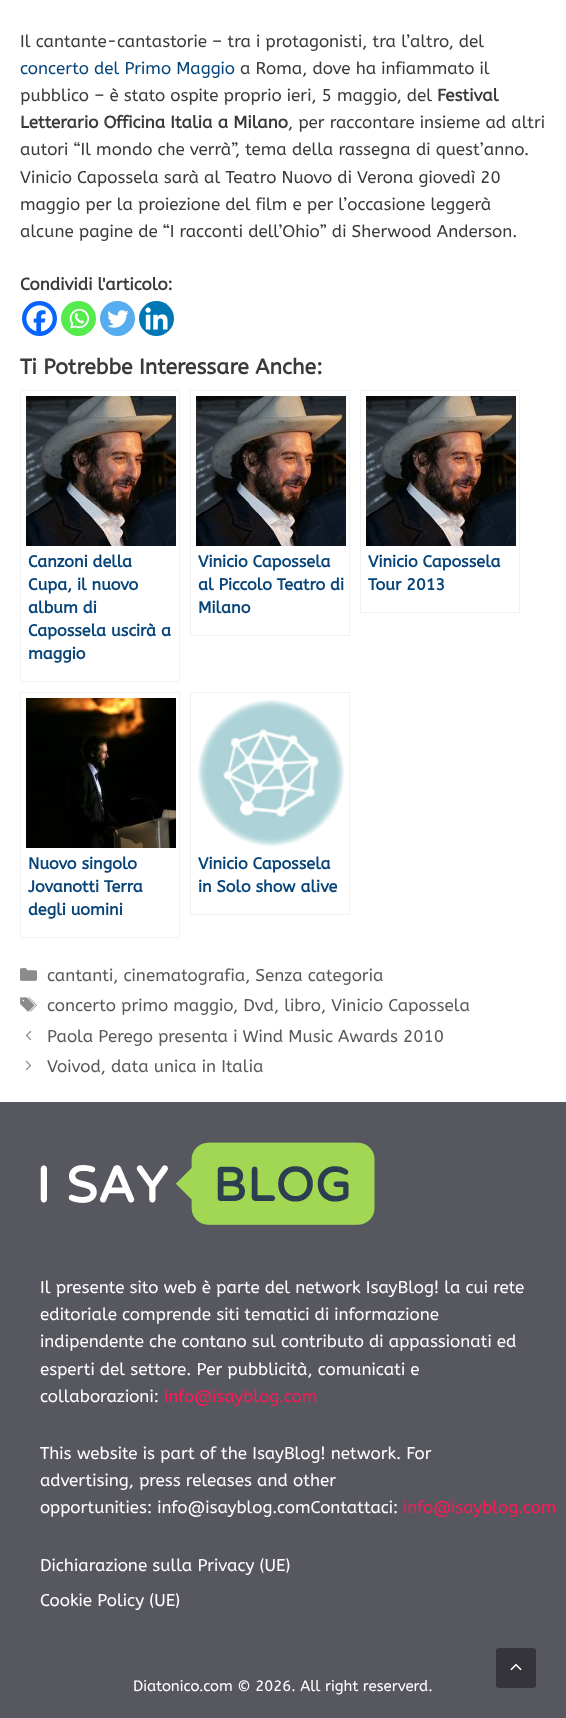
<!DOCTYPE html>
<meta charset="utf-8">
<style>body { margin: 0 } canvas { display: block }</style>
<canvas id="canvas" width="566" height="1718"></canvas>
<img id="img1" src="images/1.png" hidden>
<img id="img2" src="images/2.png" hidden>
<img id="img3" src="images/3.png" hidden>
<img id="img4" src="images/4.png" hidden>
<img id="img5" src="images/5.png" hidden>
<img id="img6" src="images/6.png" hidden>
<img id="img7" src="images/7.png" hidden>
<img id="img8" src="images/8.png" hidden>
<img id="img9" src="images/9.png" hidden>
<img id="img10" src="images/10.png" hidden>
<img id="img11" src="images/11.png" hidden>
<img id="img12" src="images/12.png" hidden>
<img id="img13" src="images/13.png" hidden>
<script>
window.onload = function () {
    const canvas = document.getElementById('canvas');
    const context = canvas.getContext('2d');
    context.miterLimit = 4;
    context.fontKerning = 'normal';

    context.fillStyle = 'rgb(255, 255, 255)';
    context.fillRect(0, 0, 566, 1718);
    context.fillStyle = 'rgb(7, 101, 254)';
    context.beginPath();
    context.arc(39.5, 318.5, 17.5, 0, 2 * Math.PI);
    context.fill();
    context.drawImage(document.getElementById('img1'), 26, 305, 27, 27);
    context.fillStyle = 'rgb(85, 235, 76)';
    context.beginPath();
    context.arc(78.5, 318.5, 17.5, 0, 2 * Math.PI);
    context.fill();
    context.drawImage(document.getElementById('img2'), 69, 308, 20, 21);
    context.fillStyle = 'rgb(85, 172, 238)';
    context.beginPath();
    context.arc(117.5, 318.5, 17.5, 0, 2 * Math.PI);
    context.fill();
    context.drawImage(document.getElementById('img3'), 107, 310, 22, 18);
    context.fillStyle = 'rgb(0, 119, 181)';
    context.beginPath();
    context.arc(156.5, 318.5, 17.5, 0, 2 * Math.PI);
    context.fill();
    context.drawImage(document.getElementById('img4'), 145, 307, 23, 23);
    context.strokeStyle = 'rgb(242, 242, 242)';
    context.strokeRect(20.5, 390.5, 159, 291);
    context.drawImage(document.getElementById('img5'), 26, 396, 150, 150);
    context.strokeRect(190.5, 390.5, 159, 245);
    context.drawImage(document.getElementById('img5'), 196, 396, 150, 150);
    context.strokeRect(360.5, 390.5, 159, 222);
    context.drawImage(document.getElementById('img5'), 366, 396, 150, 150);
    context.strokeRect(20.5, 692.5, 159, 245);
    context.drawImage(document.getElementById('img6'), 26, 698, 150, 150);
    context.strokeRect(190.5, 692.5, 159, 222);
    context.drawImage(document.getElementById('img7'), 197, 699, 147, 147);
    context.drawImage(document.getElementById('img8'), 20, 968, 17, 13);
    context.drawImage(document.getElementById('img9'), 20, 997, 17, 15);
    context.drawImage(document.getElementById('img10'), 25, 1030, 7, 11);
    context.drawImage(document.getElementById('img11'), 25, 1060, 7, 11);
    context.fillStyle = 'rgb(87, 87, 96)';
    context.fillRect(0, 1102, 566, 616);
    context.drawImage(document.getElementById('img12'), 40, 1142, 335, 83);
    context.fillStyle = 'rgb(52, 52, 58)';
    context.beginPath();
    context.roundRect(496, 1648, 40, 40, 3);
    context.fill();
    context.drawImage(document.getElementById('img13'), 510, 1663, 12, 8);
    context.font = '17px ABeeZee';
    context.fillStyle = 'rgb(58, 58, 58)';
    context.fillText('Il cantante-cantastorie – tra i protagonisti, tra l’altro, del', 20, 47);
    context.fillStyle = 'rgb(6, 68, 122)';
    context.fillText('concerto del Primo Maggio', 20, 74);
    context.fillStyle = 'rgb(58, 58, 58)';
    context.fillText('a Roma, dove ha infiammato il', 240, 74);
    context.fillText('pubblico – è stato ospite proprio ieri, 5 maggio, del', 20, 101);
    context.font = 'bold 17px ABeeZee';
    context.fillText('Festival', 437, 101);
    context.fillText('Letterario Officina Italia a Milano', 20, 128);
    context.font = '17px ABeeZee';
    context.fillText(', per raccontare insieme ad altri', 288, 128);
    context.fillText('autori “Il mondo che verrà”, tema della rassegna di quest’anno.', 20, 155);
    context.fillText('Vinicio Capossela sarà al Teatro Nuovo di Verona giovedì 20', 20, 183);
    context.fillText('maggio per la proiezione del film e per l’occasione leggerà', 20, 210);
    context.fillText('alcune pagine de “I racconti dell’Ohio” di Sherwood Anderson.', 20, 237);
    context.font = 'bold 17px ABeeZee';
    context.fillText('Condividi l\'articolo:', 20, 290);
    context.font = 'bold 21.25px ABeeZee';
    context.fillText('Ti Potrebbe Interessare Anche:', 20, 374);
    context.font = 'bold 16.25px ABeeZee';
    context.fillStyle = 'rgb(6, 68, 122)';
    context.fillText('Canzoni della', 28, 567);
    context.fillText('Cupa, il nuovo', 28, 590);
    context.fillText('album di', 28, 613);
    context.fillText('Capossela uscirà a', 28, 636);
    context.fillText('maggio', 28, 659);
    context.fillText('Vinicio Capossela', 198, 567);
    context.fillText('al Piccolo Teatro di', 198, 590);
    context.fillText('Milano', 198, 613);
    context.fillText('Vinicio Capossela', 368, 567);
    context.fillText('Tour 2013', 368, 590);
    context.fillText('Nuovo singolo', 28, 869);
    context.fillText('Jovanotti Terra', 28, 892);
    context.fillText('degli uomini', 28, 915);
    context.fillText('Vinicio Capossela', 198, 869);
    context.fillText('in Solo show alive', 198, 892);
    context.font = '17px ABeeZee';
    context.fillStyle = 'rgb(89, 89, 89)';
    context.fillText('cantanti, cinematografia, Senza categoria', 47, 981);
    context.fillText('concerto primo maggio', 47, 1011);
    context.fillText(', Dvd, libro', 233, 1011);
    context.fillText(', Vinicio Capossela', 321, 1011);
    context.fillText('Paola Perego presenta i Wind Music Awards 2010', 47, 1042);
    context.fillText('Voivod, data unica in Italia', 47, 1072);
    context.fillStyle = 'rgb(255, 255, 255)';
    context.fillText('Il presente sito web è parte del network IsayBlog! la cui rete', 40, 1293);
    context.fillText('editoriale comprende siti tematici di informazione', 40, 1320);
    context.fillText('indipendente che contano sul contributo di appassionati ed', 40, 1347);
    context.fillText('esperti del settore. Per pubblicità, comunicati e', 40, 1375);
    context.fillText('collaborazioni:', 40, 1402);
    context.fillStyle = 'rgb(255, 25, 86)';
    context.fillText('info@isayblog.com', 164, 1402);
    context.fillStyle = 'rgb(255, 255, 255)';
    context.fillText('This website is part of the IsayBlog! network. For', 40, 1459);
    context.fillText('advertising, press releases and other', 40, 1486);
    context.fillText('opportunities: info@isayblog.comContattaci:', 40, 1513);
    context.fillStyle = 'rgb(255, 25, 86)';
    context.fillText('info@isayblog.com', 403, 1513);
    context.fillStyle = 'rgb(255, 255, 255)';
    context.fillText('Dichiarazione sulla Privacy (UE)', 40, 1571);
    context.fillText('Cookie Policy (UE)', 40, 1606);
    context.font = '15px ABeeZee';
    context.fillText('Diatonico.com © 2026. All right reserverd.', 133, 1691);
};
</script>
